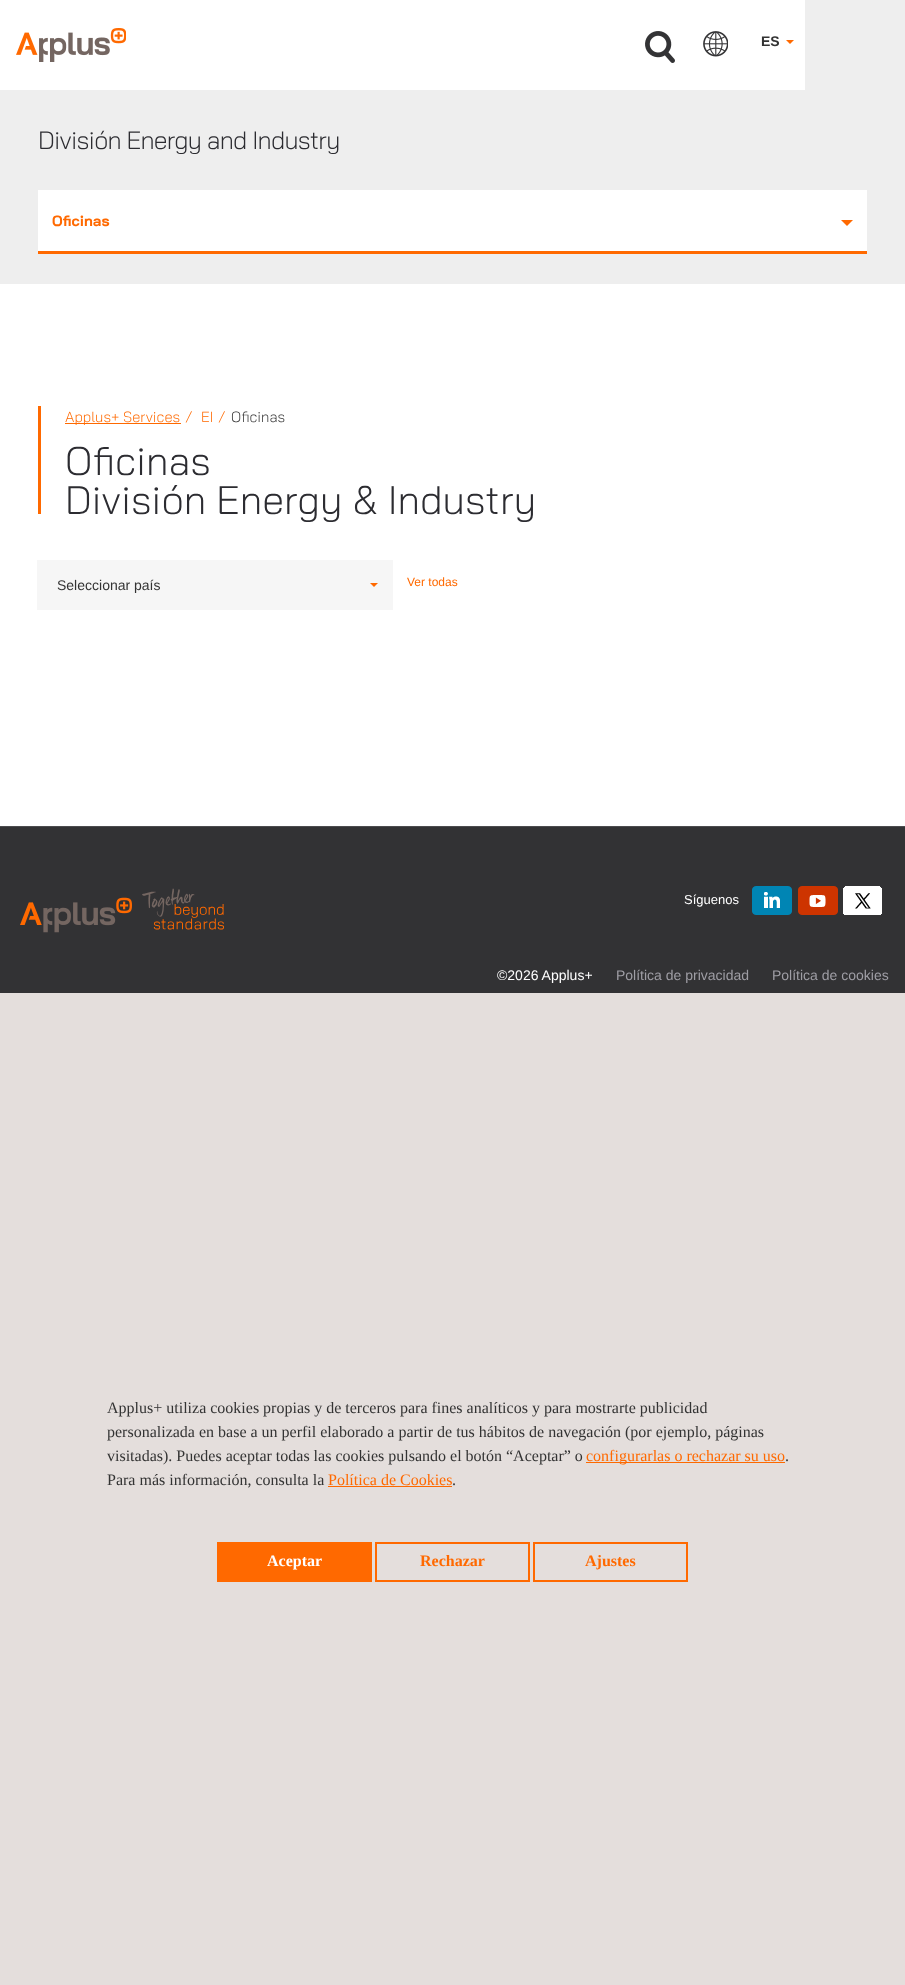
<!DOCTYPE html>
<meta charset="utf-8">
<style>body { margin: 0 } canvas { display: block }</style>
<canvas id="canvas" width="905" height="1985"></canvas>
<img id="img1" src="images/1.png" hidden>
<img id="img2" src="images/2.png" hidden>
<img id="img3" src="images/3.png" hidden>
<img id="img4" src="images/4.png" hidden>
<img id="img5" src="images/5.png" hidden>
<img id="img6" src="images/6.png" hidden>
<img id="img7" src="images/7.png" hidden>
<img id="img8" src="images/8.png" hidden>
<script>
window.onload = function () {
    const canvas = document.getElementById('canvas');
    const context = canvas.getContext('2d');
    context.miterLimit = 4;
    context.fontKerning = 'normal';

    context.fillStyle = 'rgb(255, 255, 255)';
    context.fillRect(0, 0, 905, 1985);
    context.drawImage(document.getElementById('img1'), 16, 28, 110, 34);
    context.drawImage(document.getElementById('img2'), 645, 31, 30, 32);
    context.drawImage(document.getElementById('img3'), 703, 31, 25, 26);
    context.fillStyle = 'rgb(255, 105, 0)';
    context.beginPath();
    context.moveTo(786, 40);
    context.lineTo(794, 40);
    context.lineTo(790, 44);
    context.closePath();
    context.fill();
    context.fillStyle = 'rgb(238, 238, 238)';
    context.fillRect(805, 0, 100, 90);
    context.fillRect(0, 90, 905, 194);
    context.fillStyle = 'rgb(255, 255, 255)';
    context.fillRect(38, 190, 829, 61);
    context.fillStyle = 'rgb(255, 105, 0)';
    context.fillRect(38, 251, 829, 3);
    context.beginPath();
    context.moveTo(841, 220);
    context.lineTo(853, 220);
    context.lineTo(847, 226);
    context.closePath();
    context.fill();
    context.fillRect(38, 406, 3, 108);
    context.fillRect(65, 423, 116, 1);
    context.fillStyle = 'rgb(246, 246, 246)';
    context.fillRect(37, 560, 356, 50);
    context.fillStyle = 'rgb(255, 105, 0)';
    context.beginPath();
    context.moveTo(370, 583);
    context.lineTo(378, 583);
    context.lineTo(374, 587);
    context.closePath();
    context.fill();
    context.fillStyle = 'rgb(50, 50, 52)';
    context.fillRect(0, 827, 905, 166);
    context.fillStyle = 'rgb(76, 76, 79)';
    context.fillRect(0, 826, 905, 1);
    context.drawImage(document.getElementById('img4'), 20, 897, 112, 36);
    context.drawImage(document.getElementById('img5'), 142, 888, 82, 42);
    context.drawImage(document.getElementById('img6'), 752, 886, 40, 29);
    context.drawImage(document.getElementById('img7'), 798, 886, 40, 29);
    context.drawImage(document.getElementById('img8'), 843, 886, 39, 29);
    context.fillStyle = 'rgb(228, 222, 220)';
    context.fillRect(0, 993, 905, 992);
    context.fillStyle = 'rgb(253, 105, 0)';
    context.fillRect(586, 1462, 199, 1);
    context.fillRect(328, 1486, 124, 1);
    context.fillStyle = 'rgb(255, 105, 0)';
    context.fillRect(217, 1542, 155, 40);
    context.strokeStyle = 'rgb(255, 105, 0)';
    context.lineWidth = 2;
    context.strokeRect(376, 1543, 153, 38);
    context.strokeRect(534, 1543, 153, 38);
    context.font = 'bold 14px Liberation Sans';
    context.fillStyle = 'rgb(51, 51, 51)';
    context.fillText('ES', 761, 46);
    context.letterSpacing = '-0.75px';
    context.font = '300 25px Bai Jamjuree';
    context.fillStyle = 'rgb(44, 44, 49)';
    context.fillText('División Energy and Industry', 38, 149);
    context.letterSpacing = '0px';
    context.font = 'bold 14.75px Bai Jamjuree';
    context.fillStyle = 'rgb(255, 105, 0)';
    context.fillText('Oficinas', 52, 226);
    context.font = '300 14.75px Bai Jamjuree';
    context.fillText('Applus+ Services', 65, 422);
    context.fillText('/', 185, 422);
    context.fillText('EI', 201, 422);
    context.fillText('/', 218, 422);
    context.fillStyle = 'rgb(51, 51, 51)';
    context.fillText('Oficinas', 231, 422);
    context.font = '300 39.75px Bai Jamjuree';
    context.fillStyle = 'rgb(44, 44, 49)';
    context.fillText('Oficinas', 65, 475);
    context.fillText('División Energy & Industry', 65, 514);
    context.font = '14px Liberation Sans';
    context.fillStyle = 'rgb(51, 51, 51)';
    context.fillText('Seleccionar país', 57, 590);
    context.font = '12px Liberation Sans';
    context.fillStyle = 'rgb(255, 105, 0)';
    context.fillText('Ver todas', 407, 586);
    context.font = '13px Liberation Sans';
    context.fillStyle = 'rgb(255, 255, 255)';
    context.fillText('Síguenos', 684, 904);
    context.font = '14px Liberation Sans';
    context.fillText('©2026 Applus+', 497, 980);
    context.fillStyle = 'rgb(159, 158, 165)';
    context.fillText('Política de privacidad', 616, 980);
    context.fillText('Política de cookies', 772, 980);
    context.font = '16px Liberation Serif';
    context.fillStyle = 'rgb(51, 51, 51)';
    context.fillText('Applus+ utiliza cookies propias y de terceros para fines analíticos y para mostrarte publicidad', 107, 1413);
    context.fillText('personalizada en base a un perfil elaborado a partir de tus hábitos de navegación (por ejemplo, páginas', 107, 1437);
    context.fillText('visitadas). Puedes aceptar todas las cookies pulsando el botón “Aceptar” o', 107, 1461);
    context.fillStyle = 'rgb(255, 105, 0)';
    context.fillText('configurarlas o rechazar su uso', 586, 1461);
    context.fillStyle = 'rgb(51, 51, 51)';
    context.fillText('.', 785, 1461);
    context.fillText('Para más información, consulta la', 107, 1485);
    context.fillStyle = 'rgb(255, 105, 0)';
    context.fillText('Política de Cookies', 328, 1485);
    context.fillStyle = 'rgb(51, 51, 51)';
    context.fillText('.', 452, 1485);
    context.font = 'bold 16px Liberation Serif';
    context.fillStyle = 'rgb(255, 255, 255)';
    context.fillText('Aceptar', 267, 1566);
    context.fillStyle = 'rgb(255, 105, 0)';
    context.fillText('Rechazar', 420, 1566);
    context.fillText('Ajustes', 585, 1566);
};
</script>
